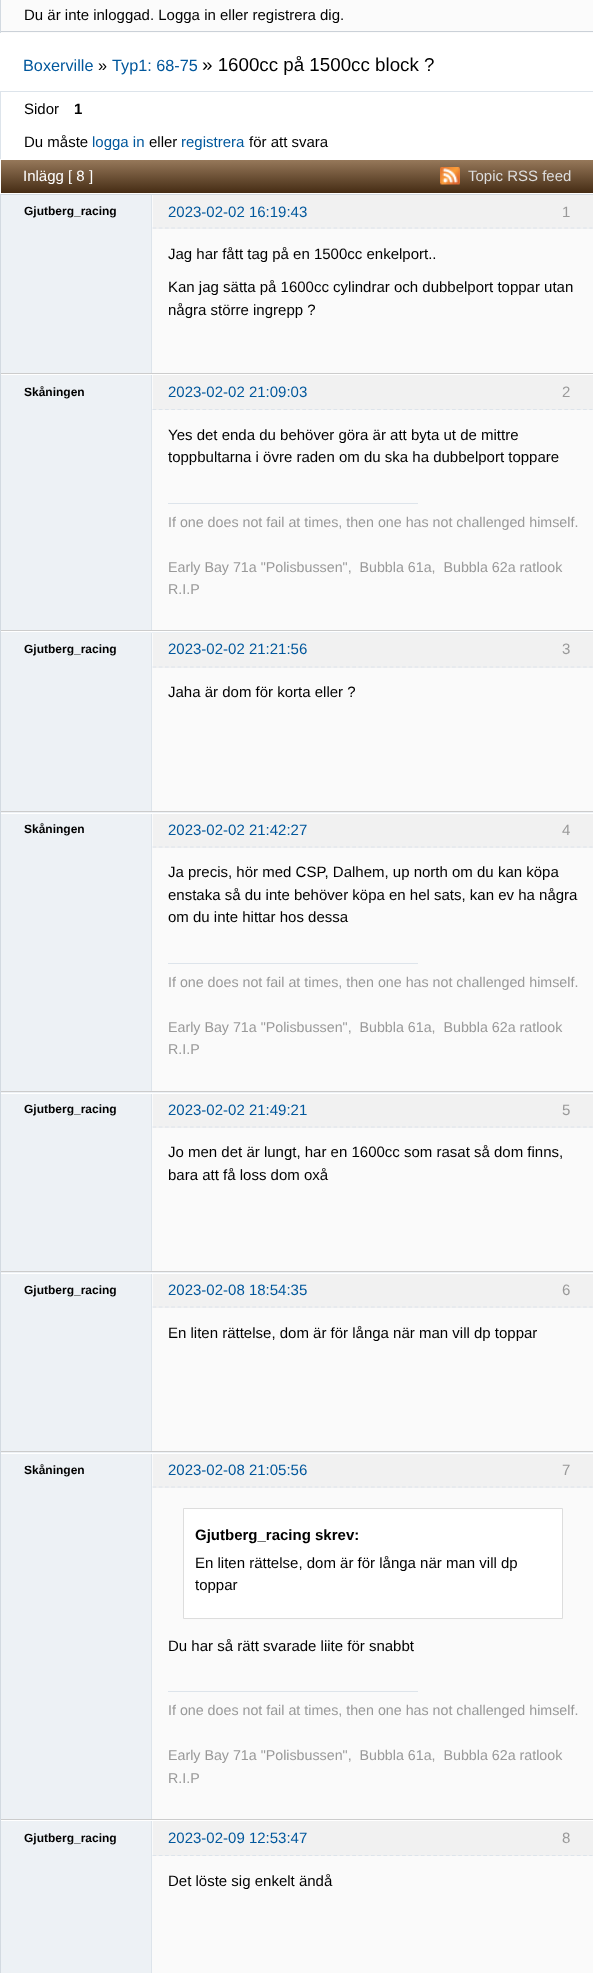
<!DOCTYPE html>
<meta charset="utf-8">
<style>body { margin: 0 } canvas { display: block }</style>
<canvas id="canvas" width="593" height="1973"></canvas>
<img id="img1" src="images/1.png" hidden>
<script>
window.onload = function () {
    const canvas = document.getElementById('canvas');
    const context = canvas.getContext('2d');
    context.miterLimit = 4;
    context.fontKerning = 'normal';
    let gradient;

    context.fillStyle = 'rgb(255, 255, 255)';
    context.fillRect(0, 0, 593, 1973);
    context.fillStyle = 'rgb(251, 251, 251)';
    context.fillRect(1, 0, 592, 33);
    context.fillStyle = 'rgb(203, 209, 216)';
    context.fillRect(0, 31, 593, 1);
    context.fillStyle = 'rgb(211, 218, 225)';
    context.fillRect(0, 0, 1, 33);
    context.fillStyle = 'rgb(221, 228, 235)';
    context.fillRect(0, 91, 593, 1);
    context.fillRect(0, 91, 1, 68);
    gradient = context.createLinearGradient(297, 193, 297, 160);
    gradient.addColorStop(0, 'rgb(69, 44, 20)');
    gradient.addColorStop(1, 'rgb(150, 120, 90)');
    context.fillStyle = gradient;
    context.fillRect(1, 160, 592, 33);
    context.drawImage(document.getElementById('img1'), 440, 167, 20, 18);
    context.fillStyle = 'rgb(211, 218, 225)';
    context.fillRect(0, 194, 593, 1);
    context.fillRect(0, 194, 1, 1779);
    context.fillStyle = 'rgb(237, 241, 245)';
    context.fillRect(1, 195, 150, 178);
    context.fillStyle = 'rgb(204, 204, 204)';
    context.fillRect(1, 373, 592, 1);
    context.fillStyle = 'rgb(250, 250, 250)';
    context.fillRect(152, 195, 441, 178);
    context.fillStyle = 'rgb(221, 228, 235)';
    context.fillRect(151, 195, 1, 178);
    context.fillStyle = 'rgb(241, 241, 241)';
    context.fillRect(153, 195, 440, 34);
    context.beginPath();
    context.moveTo(152.5, 228);
    context.lineTo(592.5, 228);
    context.strokeStyle = 'rgb(221, 228, 235)';
    context.lineWidth = 1.2;
    context.setLineDash([3.75, 2.49]);
    context.stroke();
    context.fillStyle = 'rgb(237, 241, 245)';
    context.fillRect(1, 375, 150, 255);
    context.fillStyle = 'rgb(204, 204, 204)';
    context.fillRect(1, 630, 592, 1);
    context.fillStyle = 'rgb(250, 250, 250)';
    context.fillRect(152, 375, 1, 35);
    context.fillStyle = 'rgb(221, 228, 235)';
    context.fillRect(151, 375, 1, 255);
    context.fillStyle = 'rgb(241, 241, 241)';
    context.fillRect(153, 375, 440, 35);
    context.beginPath();
    context.moveTo(152.5, 409.5);
    context.lineTo(592.5, 409.5);
    context.stroke();
    context.fillStyle = 'rgb(250, 250, 250)';
    context.fillRect(152, 410, 441, 220);
    context.fillStyle = 'rgb(221, 228, 235)';
    context.fillRect(168, 503, 250, 1);
    context.fillStyle = 'rgb(237, 241, 245)';
    context.fillRect(1, 632, 592, 181);
    context.fillStyle = 'rgb(204, 204, 204)';
    context.fillRect(1, 811, 592, 1);
    context.fillStyle = 'rgb(250, 250, 250)';
    context.fillRect(152, 633, 441, 178);
    context.fillStyle = 'rgb(221, 228, 235)';
    context.fillRect(151, 633, 1, 178);
    context.fillStyle = 'rgb(241, 241, 241)';
    context.fillRect(153, 633, 440, 35);
    context.beginPath();
    context.moveTo(152.5, 667);
    context.lineTo(592.5, 667);
    context.stroke();
    context.fillStyle = 'rgb(237, 241, 245)';
    context.fillRect(1, 814, 592, 279);
    context.fillStyle = 'rgb(204, 204, 204)';
    context.fillRect(1, 1091, 592, 1);
    context.fillStyle = 'rgb(250, 250, 250)';
    context.fillRect(152, 814, 441, 277);
    context.fillStyle = 'rgb(221, 228, 235)';
    context.fillRect(151, 814, 1, 277);
    context.fillStyle = 'rgb(241, 241, 241)';
    context.fillRect(153, 814, 440, 34);
    context.beginPath();
    context.moveTo(152.5, 847);
    context.lineTo(592.5, 847);
    context.stroke();
    context.fillStyle = 'rgb(221, 228, 235)';
    context.fillRect(168, 963, 250, 1);
    context.fillStyle = 'rgb(237, 241, 245)';
    context.fillRect(1, 1094, 592, 179);
    context.fillStyle = 'rgb(204, 204, 204)';
    context.fillRect(1, 1271, 592, 1);
    context.fillStyle = 'rgb(250, 250, 250)';
    context.fillRect(152, 1094, 441, 177);
    context.fillStyle = 'rgb(221, 228, 235)';
    context.fillRect(151, 1094, 1, 177);
    context.fillStyle = 'rgb(241, 241, 241)';
    context.fillRect(153, 1094, 440, 34);
    context.beginPath();
    context.moveTo(152.5, 1127);
    context.lineTo(592.5, 1127);
    context.stroke();
    context.fillStyle = 'rgb(237, 241, 245)';
    context.fillRect(1, 1274, 592, 179);
    context.fillStyle = 'rgb(204, 204, 204)';
    context.fillRect(1, 1451, 592, 1);
    context.fillStyle = 'rgb(250, 250, 250)';
    context.fillRect(152, 1274, 441, 177);
    context.fillStyle = 'rgb(221, 228, 235)';
    context.fillRect(151, 1274, 1, 177);
    context.fillStyle = 'rgb(241, 241, 241)';
    context.fillRect(153, 1274, 440, 34);
    context.beginPath();
    context.moveTo(152.5, 1307);
    context.lineTo(592.5, 1307);
    context.stroke();
    context.fillStyle = 'rgb(237, 241, 245)';
    context.fillRect(1, 1454, 150, 365);
    context.fillStyle = 'rgb(204, 204, 204)';
    context.fillRect(1, 1819, 592, 1);
    context.fillStyle = 'rgb(250, 250, 250)';
    context.fillRect(152, 1454, 441, 365);
    context.fillStyle = 'rgb(221, 228, 235)';
    context.fillRect(151, 1454, 1, 365);
    context.fillStyle = 'rgb(241, 241, 241)';
    context.fillRect(153, 1454, 440, 34);
    context.beginPath();
    context.moveTo(152.5, 1487);
    context.lineTo(592.5, 1487);
    context.stroke();
    context.fillStyle = 'rgb(255, 255, 255)';
    context.beginPath();
    context.rect(183.5, 1508.5, 379, 110);
    context.fill();
    context.strokeStyle = 'rgb(221, 221, 221)';
    context.lineWidth = 1;
    context.setLineDash([]);
    context.stroke();
    context.fillStyle = 'rgb(221, 228, 235)';
    context.fillRect(168, 1691, 250, 1);
    context.fillStyle = 'rgb(237, 241, 245)';
    context.fillRect(1, 1821, 150, 152);
    context.fillStyle = 'rgb(250, 250, 250)';
    context.fillRect(152, 1821, 441, 152);
    context.fillStyle = 'rgb(221, 228, 235)';
    context.fillRect(151, 1821, 1, 152);
    context.fillStyle = 'rgb(241, 241, 241)';
    context.fillRect(153, 1821, 440, 35);
    context.beginPath();
    context.moveTo(152.5, 1855.5);
    context.lineTo(592.5, 1855.5);
    context.strokeStyle = 'rgb(221, 228, 235)';
    context.lineWidth = 1.2;
    context.setLineDash([3.75, 2.49]);
    context.stroke();
    context.font = '15px Liberation Sans';
    context.fillStyle = 'rgb(0, 0, 0)';
    context.fillText('Du är inte inloggad. Logga in eller registrera dig.', 24, 20);
    context.font = '16.25px Liberation Sans';
    context.fillStyle = 'rgb(0, 87, 156)';
    context.fillText('Boxerville', 23, 71);
    context.fillStyle = 'rgb(0, 0, 0)';
    context.fillText('»', 98, 71);
    context.fillStyle = 'rgb(0, 87, 156)';
    context.fillText('Typ1: 68-75', 112, 71);
    context.font = '18.75px Liberation Sans';
    context.fillStyle = 'rgb(0, 0, 0)';
    context.fillText('» 1600cc på 1500cc block ?', 202, 71);
    context.font = '15px Liberation Sans';
    context.fillText('Sidor', 24, 114);
    context.font = 'bold 15px Liberation Sans';
    context.fillText('1', 74, 114);
    context.font = '15px Liberation Sans';
    context.fillText('Du måste', 24, 147);
    context.fillStyle = 'rgb(0, 87, 156)';
    context.fillText('logga in', 92, 147);
    context.fillStyle = 'rgb(0, 0, 0)';
    context.fillText('eller', 149, 147);
    context.fillStyle = 'rgb(0, 87, 156)';
    context.fillText('registrera', 181, 147);
    context.fillStyle = 'rgb(0, 0, 0)';
    context.fillText('för att svara', 249, 147);
    context.fillStyle = 'rgb(255, 255, 255)';
    context.fillText('Inlägg [ 8 ]', 23, 181);
    context.fillStyle = 'rgb(221, 221, 221)';
    context.fillText('Topic RSS feed', 468, 181);
    context.font = 'bold 12px Liberation Sans';
    context.fillStyle = 'rgb(0, 0, 0)';
    context.fillText('Gjutberg_racing', 24, 215);
    context.font = '15px Liberation Sans';
    context.fillStyle = 'rgb(0, 87, 156)';
    context.fillText('2023-02-02 16:19:43', 168, 217);
    context.fillStyle = 'rgb(153, 153, 153)';
    context.fillText('1', 562, 217);
    context.fillStyle = 'rgb(0, 0, 0)';
    context.fillText('Jag har fått tag på en 1500cc enkelport..', 168, 259);
    context.fillText('Kan jag sätta på 1600cc cylindrar och dubbelport toppar utan', 168, 292);
    context.fillText('några större ingrepp ?', 168, 315);
    context.font = 'bold 12px Liberation Sans';
    context.fillText('Skåningen', 24, 396);
    context.font = '15px Liberation Sans';
    context.fillStyle = 'rgb(0, 87, 156)';
    context.fillText('2023-02-02 21:09:03', 168, 397);
    context.fillStyle = 'rgb(153, 153, 153)';
    context.fillText('2', 562, 397);
    context.fillStyle = 'rgb(0, 0, 0)';
    context.fillText('Yes det enda du behöver göra är att byta ut de mittre', 168, 440);
    context.fillText('toppbultarna i övre raden om du ska ha dubbelport toppare', 168, 462);
    context.font = '14.25px Liberation Sans';
    context.fillStyle = 'rgb(153, 153, 153)';
    context.fillText('If one does not fail at times, then one has not challenged himself.', 168, 527);
    context.fillText('Early Bay 71a "Polisbussen",  Bubbla 61a,  Bubbla 62a ratlook', 168, 572);
    context.fillText('R.I.P', 168, 594);
    context.font = 'bold 12px Liberation Sans';
    context.fillStyle = 'rgb(0, 0, 0)';
    context.fillText('Gjutberg_racing', 24, 653);
    context.font = '15px Liberation Sans';
    context.fillStyle = 'rgb(0, 87, 156)';
    context.fillText('2023-02-02 21:21:56', 168, 654);
    context.fillStyle = 'rgb(153, 153, 153)';
    context.fillText('3', 562, 654);
    context.fillStyle = 'rgb(0, 0, 0)';
    context.fillText('Jaha är dom för korta eller ?', 168, 697);
    context.font = 'bold 12px Liberation Sans';
    context.fillText('Skåningen', 24, 833);
    context.font = '15px Liberation Sans';
    context.fillStyle = 'rgb(0, 87, 156)';
    context.fillText('2023-02-02 21:42:27', 168, 835);
    context.fillStyle = 'rgb(153, 153, 153)';
    context.fillText('4', 562, 835);
    context.fillStyle = 'rgb(0, 0, 0)';
    context.fillText('Ja precis, hör med CSP, Dalhem, up north om du kan köpa', 168, 877);
    context.fillText('enstaka så du inte behöver köpa en hel sats, kan ev ha några', 168, 900);
    context.fillText('om du inte hittar hos dessa', 168, 922);
    context.font = '14.25px Liberation Sans';
    context.fillStyle = 'rgb(153, 153, 153)';
    context.fillText('If one does not fail at times, then one has not challenged himself.', 168, 987);
    context.fillText('Early Bay 71a "Polisbussen",  Bubbla 61a,  Bubbla 62a ratlook', 168, 1032);
    context.fillText('R.I.P', 168, 1054);
    context.font = 'bold 12px Liberation Sans';
    context.fillStyle = 'rgb(0, 0, 0)';
    context.fillText('Gjutberg_racing', 24, 1113);
    context.font = '15px Liberation Sans';
    context.fillStyle = 'rgb(0, 87, 156)';
    context.fillText('2023-02-02 21:49:21', 168, 1115);
    context.fillStyle = 'rgb(153, 153, 153)';
    context.fillText('5', 562, 1115);
    context.fillStyle = 'rgb(0, 0, 0)';
    context.fillText('Jo men det är lungt, har en 1600cc som rasat så dom finns,', 168, 1157);
    context.fillText('bara att få loss dom oxå', 168, 1180);
    context.font = 'bold 12px Liberation Sans';
    context.fillText('Gjutberg_racing', 24, 1294);
    context.font = '15px Liberation Sans';
    context.fillStyle = 'rgb(0, 87, 156)';
    context.fillText('2023-02-08 18:54:35', 168, 1295);
    context.fillStyle = 'rgb(153, 153, 153)';
    context.fillText('6', 562, 1295);
    context.fillStyle = 'rgb(0, 0, 0)';
    context.fillText('En liten rättelse, dom är för långa när man vill dp toppar', 168, 1338);
    context.font = 'bold 12px Liberation Sans';
    context.fillText('Skåningen', 24, 1474);
    context.font = '15px Liberation Sans';
    context.fillStyle = 'rgb(0, 87, 156)';
    context.fillText('2023-02-08 21:05:56', 168, 1475);
    context.fillStyle = 'rgb(153, 153, 153)';
    context.fillText('7', 562, 1475);
    context.font = 'bold 15px Liberation Sans';
    context.fillStyle = 'rgb(0, 0, 0)';
    context.fillText('Gjutberg_racing skrev:', 195, 1540);
    context.font = '15px Liberation Sans';
    context.fillText('En liten rättelse, dom är för långa när man vill dp', 195, 1568);
    context.fillText('toppar', 195, 1590);
    context.fillText('Du har så rätt svarade liite för snabbt', 168, 1651);
    context.font = '14.25px Liberation Sans';
    context.fillStyle = 'rgb(153, 153, 153)';
    context.fillText('If one does not fail at times, then one has not challenged himself.', 168, 1715);
    context.fillText('Early Bay 71a "Polisbussen",  Bubbla 61a,  Bubbla 62a ratlook', 168, 1760);
    context.fillText('R.I.P', 168, 1783);
    context.font = 'bold 12px Liberation Sans';
    context.fillStyle = 'rgb(0, 0, 0)';
    context.fillText('Gjutberg_racing', 24, 1842);
    context.font = '15px Liberation Sans';
    context.fillStyle = 'rgb(0, 87, 156)';
    context.fillText('2023-02-09 12:53:47', 168, 1843);
    context.fillStyle = 'rgb(153, 153, 153)';
    context.fillText('8', 562, 1843);
    context.fillStyle = 'rgb(0, 0, 0)';
    context.fillText('Det löste sig enkelt ändå', 168, 1886);
};
</script>
